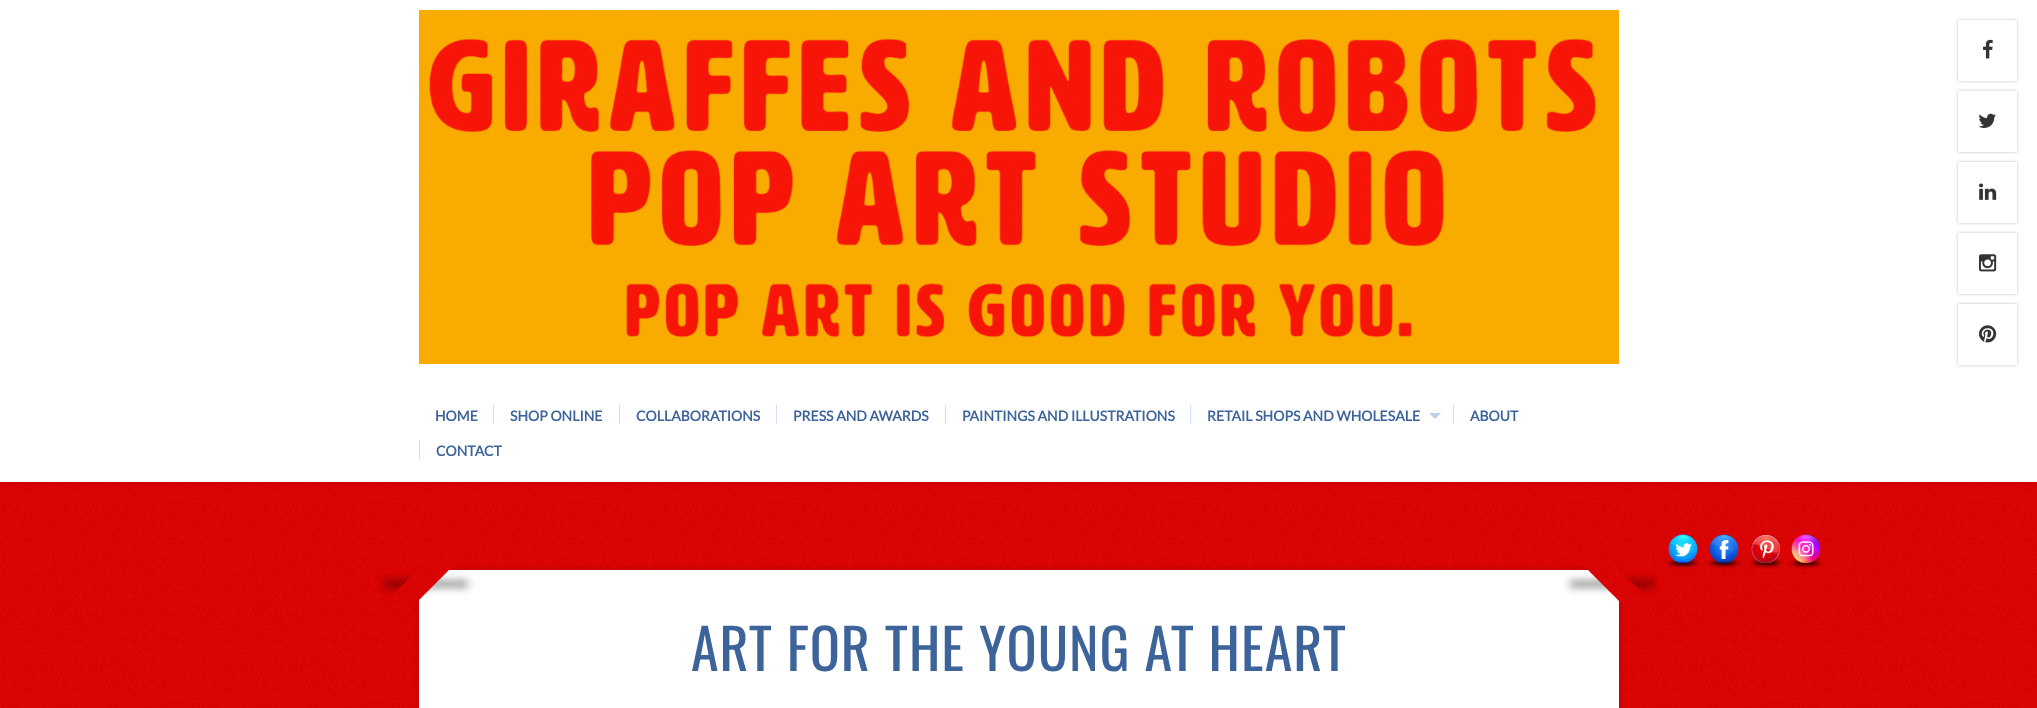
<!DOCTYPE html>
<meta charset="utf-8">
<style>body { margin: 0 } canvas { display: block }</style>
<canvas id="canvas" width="2037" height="708"></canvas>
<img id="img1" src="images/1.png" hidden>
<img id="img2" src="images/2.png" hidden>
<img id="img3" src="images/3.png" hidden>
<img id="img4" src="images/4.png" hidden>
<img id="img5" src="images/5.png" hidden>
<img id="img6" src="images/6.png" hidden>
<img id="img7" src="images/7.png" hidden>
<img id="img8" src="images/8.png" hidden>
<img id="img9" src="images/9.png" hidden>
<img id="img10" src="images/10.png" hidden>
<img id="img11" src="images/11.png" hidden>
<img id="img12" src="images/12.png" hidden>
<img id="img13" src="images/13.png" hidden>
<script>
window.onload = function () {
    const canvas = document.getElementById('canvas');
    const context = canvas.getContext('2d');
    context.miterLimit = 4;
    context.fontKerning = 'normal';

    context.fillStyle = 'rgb(221, 0, 0)';
    context.fillRect(0, 0, 2037, 708);
    context.drawImage(document.getElementById('img1'), 0, 482, 2037, 226);
    context.fillStyle = 'rgba(0, 0, 0, 0.15)';
    context.filter = 'blur(2.5px)';
    context.beginPath();
    context.rect(0, -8, 2037, 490);
    context.fill();
    context.filter = 'none';
    context.fillStyle = 'rgb(255, 255, 255)';
    context.fillRect(0, 0, 2037, 482);
    context.save();
    context.beginPath();
    context.moveTo(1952, 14);
    context.lineTo(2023, 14);
    context.lineTo(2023, 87);
    context.lineTo(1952, 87);
    context.closePath();
    context.moveTo(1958, 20);
    context.lineTo(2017, 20);
    context.lineTo(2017, 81);
    context.lineTo(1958, 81);
    context.closePath();
    context.clip('evenodd');
    context.fillStyle = 'rgba(0, 0, 0, 0.25)';
    context.filter = 'blur(1.5px)';
    context.beginPath();
    context.rect(1958, 20, 59, 61);
    context.fill();
    context.filter = 'none';
    context.restore();
    context.drawImage(document.getElementById('img2'), 1983, 39, 10, 20);
    context.save();
    context.beginPath();
    context.moveTo(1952, 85);
    context.lineTo(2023, 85);
    context.lineTo(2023, 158);
    context.lineTo(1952, 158);
    context.closePath();
    context.moveTo(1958, 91);
    context.lineTo(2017, 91);
    context.lineTo(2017, 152);
    context.lineTo(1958, 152);
    context.closePath();
    context.clip('evenodd');
    context.fillStyle = 'rgba(0, 0, 0, 0.25)';
    context.filter = 'blur(1.5px)';
    context.beginPath();
    context.rect(1958, 91, 59, 61);
    context.fill();
    context.filter = 'none';
    context.restore();
    context.drawImage(document.getElementById('img3'), 1978, 113, 18, 15);
    context.save();
    context.beginPath();
    context.moveTo(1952, 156);
    context.lineTo(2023, 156);
    context.lineTo(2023, 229);
    context.lineTo(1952, 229);
    context.closePath();
    context.moveTo(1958, 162);
    context.lineTo(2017, 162);
    context.lineTo(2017, 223);
    context.lineTo(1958, 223);
    context.closePath();
    context.clip('evenodd');
    context.fillStyle = 'rgba(0, 0, 0, 0.25)';
    context.filter = 'blur(1.5px)';
    context.beginPath();
    context.rect(1958, 162, 59, 61);
    context.fill();
    context.filter = 'none';
    context.restore();
    context.drawImage(document.getElementById('img4'), 1979, 183, 18, 17);
    context.save();
    context.beginPath();
    context.moveTo(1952, 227);
    context.lineTo(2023, 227);
    context.lineTo(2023, 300);
    context.lineTo(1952, 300);
    context.closePath();
    context.moveTo(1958, 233);
    context.lineTo(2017, 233);
    context.lineTo(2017, 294);
    context.lineTo(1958, 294);
    context.closePath();
    context.clip('evenodd');
    context.fillStyle = 'rgba(0, 0, 0, 0.25)';
    context.filter = 'blur(1.5px)';
    context.beginPath();
    context.rect(1958, 233, 59, 61);
    context.fill();
    context.filter = 'none';
    context.restore();
    context.drawImage(document.getElementById('img5'), 1979, 254, 18, 18);
    context.save();
    context.beginPath();
    context.moveTo(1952, 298);
    context.lineTo(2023, 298);
    context.lineTo(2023, 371);
    context.lineTo(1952, 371);
    context.closePath();
    context.moveTo(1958, 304);
    context.lineTo(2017, 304);
    context.lineTo(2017, 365);
    context.lineTo(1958, 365);
    context.closePath();
    context.clip('evenodd');
    context.fillStyle = 'rgba(0, 0, 0, 0.25)';
    context.filter = 'blur(1.5px)';
    context.beginPath();
    context.rect(1958, 304, 59, 61);
    context.fill();
    context.filter = 'none';
    context.restore();
    context.drawImage(document.getElementById('img6'), 1979, 325, 18, 18);
    context.drawImage(document.getElementById('img7'), 419, 10, 1200, 354);
    context.fillStyle = 'rgb(206, 223, 243)';
    context.fillRect(493, 405, 1, 19);
    context.fillRect(619, 405, 1, 19);
    context.fillRect(776, 405, 1, 19);
    context.fillRect(945, 405, 1, 19);
    context.fillRect(1190, 405, 1, 19);
    context.fillStyle = 'rgb(187, 208, 233)';
    context.beginPath();
    context.moveTo(1429, 413);
    context.lineTo(1441, 413);
    context.lineTo(1435, 419);
    context.closePath();
    context.fill();
    context.fillStyle = 'rgb(206, 223, 243)';
    context.fillRect(1453, 405, 1, 19);
    context.fillRect(419, 440, 1, 19);
    context.fillStyle = 'rgba(0, 0, 0, 0.2)';
    context.filter = 'blur(2.5px)';
    context.beginPath();
    context.roundRect(419, 570, 1200, 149, 3);
    context.fill();
    context.filter = 'none';
    context.fillStyle = 'rgb(255, 255, 255)';
    context.fillRect(419, 570, 1200, 138);
    context.fillStyle = 'rgba(0, 0, 0, 0.5)';
    context.filter = 'blur(4.5px)';
    context.beginPath();
    context.rect(384, 581, 84, 6);
    context.fill();
    context.filter = 'none';
    context.fillStyle = 'rgb(221, 0, 0)';
    context.beginPath();
    context.moveTo(382, 605);
    context.lineTo(453, 535);
    context.lineTo(469, 550);
    context.lineTo(398, 621);
    context.closePath();
    context.fill();
    context.drawImage(document.getElementById('img8'), 384, 535, 84, 86);
    context.fillStyle = 'rgba(0, 0, 0, 0.5)';
    context.filter = 'blur(4.5px)';
    context.beginPath();
    context.rect(1570, 581, 84, 6);
    context.fill();
    context.filter = 'none';
    context.fillStyle = 'rgb(221, 0, 0)';
    context.beginPath();
    context.moveTo(1584, 535);
    context.lineTo(1655, 605);
    context.lineTo(1639, 621);
    context.lineTo(1568, 550);
    context.closePath();
    context.fill();
    context.drawImage(document.getElementById('img9'), 1570, 536, 85, 84);
    context.drawImage(document.getElementById('img10'), 1665, 534, 36, 35);
    context.drawImage(document.getElementById('img11'), 1706, 534, 36, 35);
    context.drawImage(document.getElementById('img12'), 1749, 535, 35, 34);
    context.drawImage(document.getElementById('img13'), 1788, 534, 36, 35);
    context.font = 'bold 14px Lato';
    context.fillStyle = 'rgb(60, 99, 154)';
    context.fillText('HOME', 435, 421);
    context.fillText('SHOP ONLINE', 510, 421);
    context.fillText('COLLABORATIONS', 636, 421);
    context.fillText('PRESS AND AWARDS', 793, 421);
    context.fillText('PAINTINGS AND ILLUSTRATIONS', 962, 421);
    context.fillText('RETAIL SHOPS AND WHOLESALE', 1207, 421);
    context.fillText('ABOUT', 1470, 421);
    context.fillText('CONTACT', 436, 456);
    context.letterSpacing = '1px';
    context.font = '56px Oswald';
    context.fillText('ART FOR THE YOUNG AT HEART', 691, 671);
};
</script>
